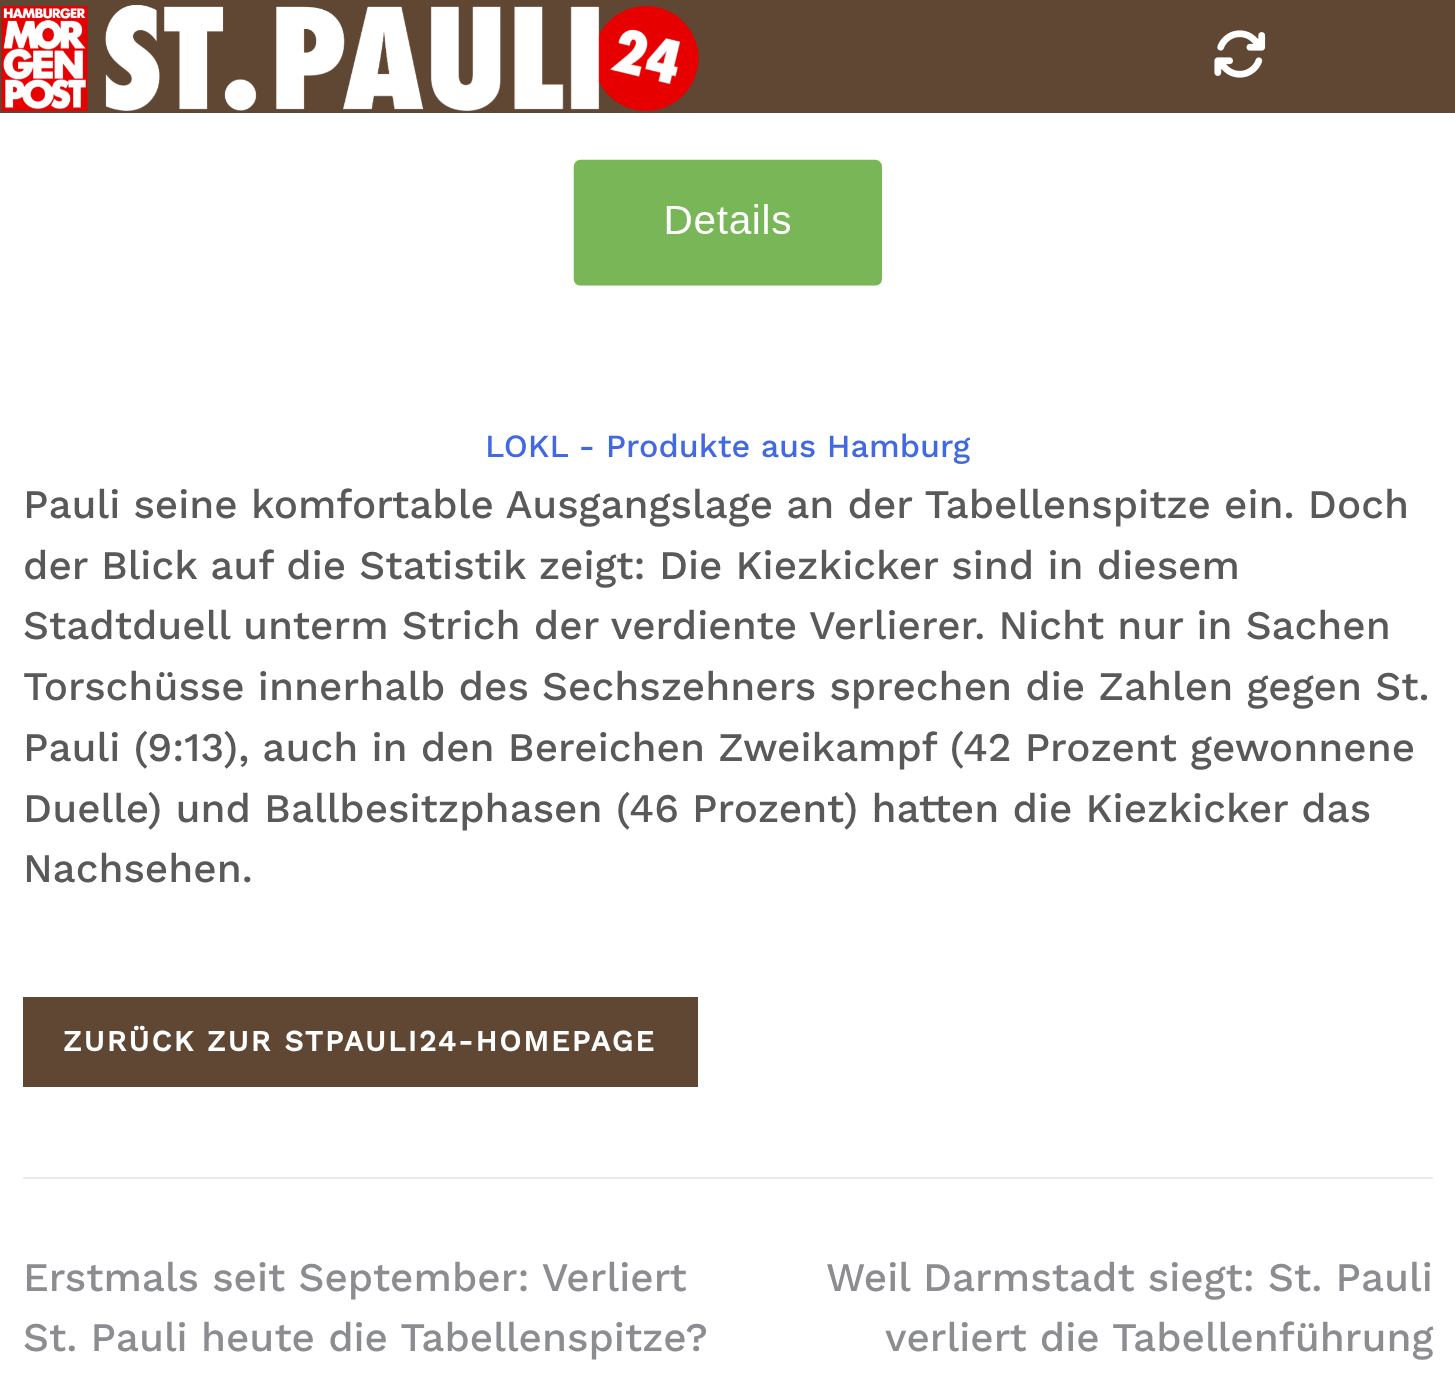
<!DOCTYPE html>
<meta charset="utf-8">
<style>body { margin: 0 } canvas { display: block }</style>
<canvas id="canvas" width="1455" height="1398"></canvas>
<img id="img1" src="images/1.png" hidden>
<img id="img2" src="images/2.png" hidden>
<img id="img3" src="images/3.png" hidden>
<script>
window.onload = function () {
    const canvas = document.getElementById('canvas');
    const context = canvas.getContext('2d');
    context.miterLimit = 4;
    context.fontKerning = 'normal';

    context.fillStyle = 'rgb(255, 255, 255)';
    context.fillRect(0, 0, 1455, 1398);
    context.fillStyle = 'rgb(96, 71, 52)';
    context.fillRect(0, 0, 1455, 113);
    context.drawImage(document.getElementById('img1'), 1, 5, 698, 107);
    context.drawImage(document.getElementById('img2'), 1214, 30, 52, 48);
    context.fillStyle = 'rgb(235, 235, 235)';
    context.fillRect(23, 1177, 1410, 2);
    context.drawImage(document.getElementById('img3'), 573, 159, 309, 127);
    context.fillStyle = 'rgb(96, 71, 52)';
    context.fillRect(23, 997, 675, 90);
    context.font = '500 32.4px Work Sans';
    context.fillStyle = 'rgb(65, 105, 225)';
    context.fillText('LOKL - Produkte aus Hamburg', 485, 457);
    context.font = '500 40.5px Work Sans';
    context.fillStyle = 'rgb(89, 89, 89)';
    context.fillText('Pauli seine komfortable Ausgangslage an der Tabellenspitze ein. Doch', 23, 518);
    context.fillText('der Blick auf die Statistik zeigt: Die Kiezkicker sind in diesem', 23, 579);
    context.fillText('Stadtduell unterm Strich der verdiente Verlierer. Nicht nur in Sachen', 23, 639);
    context.fillText('Torschüsse innerhalb des Sechszehners sprechen die Zahlen gegen St.', 23, 700);
    context.fillText('Pauli (9:13), auch in den Bereichen Zweikampf (42 Prozent gewonnene', 23, 761);
    context.fillText('Duelle) und Ballbesitzphasen (46 Prozent) hatten die Kiezkicker das', 23, 822);
    context.fillText('Nachsehen.', 23, 882);
    context.letterSpacing = '2.25px';
    context.font = 'bold 29.25px Work Sans';
    context.fillStyle = 'rgb(255, 255, 255)';
    context.fillText('ZURÜCK ZUR STPAULI24-HOMEPAGE', 63, 1051);
    context.letterSpacing = '0px';
    context.font = '500 40.5px Work Sans';
    context.fillStyle = 'rgb(140, 141, 144)';
    context.fillText('Erstmals seit September: Verliert', 23, 1291);
    context.fillText('St. Pauli heute die Tabellenspitze?', 23, 1351);
    context.fillText('Weil Darmstadt siegt: St. Pauli', 826, 1291);
    context.fillText('verliert die Tabellenführung', 885, 1351);
};
</script>
